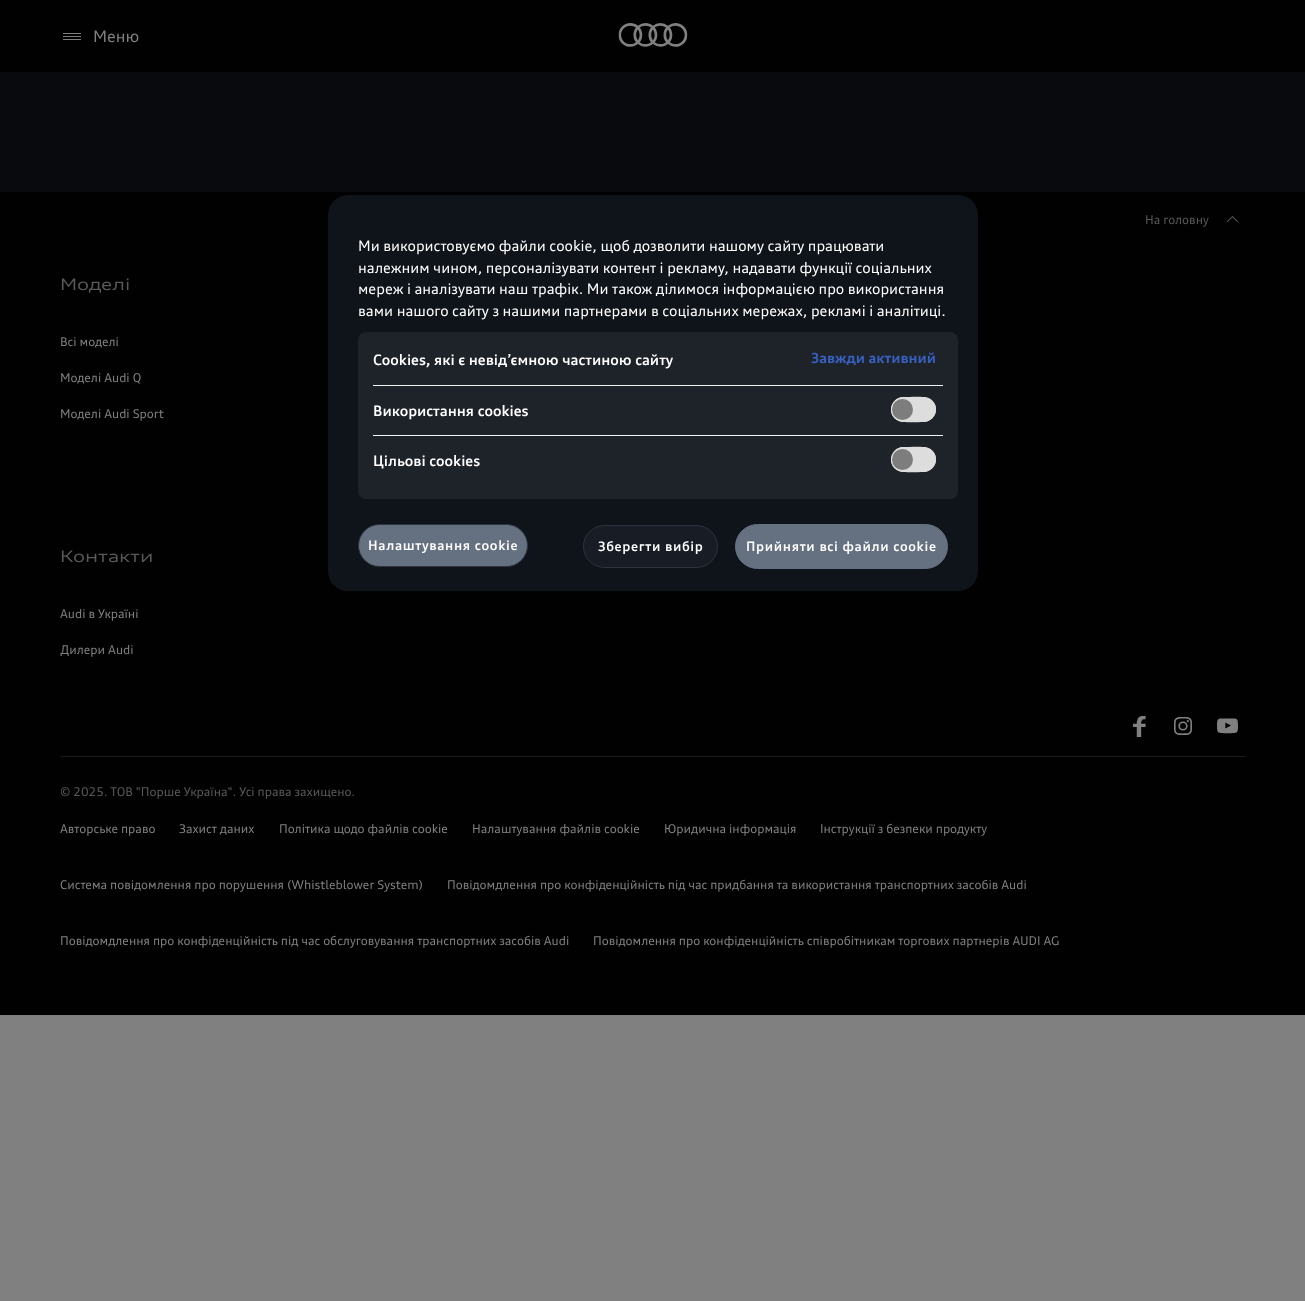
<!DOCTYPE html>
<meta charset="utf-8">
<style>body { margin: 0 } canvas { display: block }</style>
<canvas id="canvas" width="1305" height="1301"></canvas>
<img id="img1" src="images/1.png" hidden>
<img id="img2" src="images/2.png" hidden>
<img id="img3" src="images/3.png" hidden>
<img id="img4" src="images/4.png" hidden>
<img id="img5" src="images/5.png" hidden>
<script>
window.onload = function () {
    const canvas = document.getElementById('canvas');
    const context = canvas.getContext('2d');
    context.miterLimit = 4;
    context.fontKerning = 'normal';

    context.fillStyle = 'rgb(128, 128, 128)';
    context.fillRect(0, 0, 1305, 1301);
    context.fillStyle = 'rgb(8, 10, 13)';
    context.fillRect(0, 72, 1305, 120);
    context.fillStyle = 'rgb(1, 1, 2)';
    context.fillRect(0, 0, 1305, 72);
    context.fillStyle = 'rgb(126, 126, 127)';
    context.fillRect(63, 33, 18, 1);
    context.fillRect(63, 36, 18, 1);
    context.fillRect(63, 39, 18, 1);
    context.drawImage(document.getElementById('img1'), 618, 23, 70, 24);
    context.fillStyle = 'rgb(1, 1, 2)';
    context.fillRect(0, 192, 1305, 823);
    context.drawImage(document.getElementById('img2'), 1226, 215, 13, 8);
    context.fillStyle = 'rgb(26, 26, 26)';
    context.fillRect(60, 756, 1185, 1);
    context.drawImage(document.getElementById('img3'), 1133, 716, 13, 21);
    context.drawImage(document.getElementById('img4'), 1174, 717, 18, 18);
    context.drawImage(document.getElementById('img5'), 1217, 718, 21, 16);
    context.fillStyle = 'rgb(15, 19, 26)';
    context.beginPath();
    context.roundRect(328, 195, 650, 396, 20);
    context.fill();
    context.fillStyle = 'rgb(30, 34, 41)';
    context.beginPath();
    context.roundRect(358, 332, 600, 167, 8);
    context.fill();
    context.fillStyle = 'rgb(244, 244, 244)';
    context.fillRect(373, 385, 570, 1);
    context.fillRect(373, 435, 570, 1);
    context.fillStyle = 'rgb(242, 241, 241)';
    context.beginPath();
    context.roundRect(891, 397, 45, 25, 12.5);
    context.fill();
    context.fillStyle = 'rgb(221, 221, 221)';
    context.beginPath();
    context.moveTo(904, 397);
    context.bezierCurveTo(910, 397, 923, 396, 928, 398);
    context.bezierCurveTo(941, 403, 937, 421, 924, 422);
    context.bezierCurveTo(918, 422, 903, 423, 899, 421);
    context.bezierCurveTo(886, 416, 890, 397, 904, 397);
    context.closePath();
    context.fill();
    context.fillStyle = 'rgb(125, 125, 125)';
    context.beginPath();
    context.arc(902.5, 409.5, 10.5, 0, 2 * Math.PI);
    context.fill();
    context.fillStyle = 'rgb(242, 241, 241)';
    context.beginPath();
    context.roundRect(891, 447, 45, 25, 12.5);
    context.fill();
    context.fillStyle = 'rgb(221, 221, 221)';
    context.beginPath();
    context.moveTo(904, 447);
    context.bezierCurveTo(910, 447, 923, 446, 928, 448);
    context.bezierCurveTo(941, 453, 937, 471, 924, 472);
    context.bezierCurveTo(918, 472, 903, 473, 899, 471);
    context.bezierCurveTo(886, 466, 890, 447, 904, 447);
    context.closePath();
    context.fill();
    context.fillStyle = 'rgb(125, 125, 125)';
    context.beginPath();
    context.arc(902.5, 459.5, 10.5, 0, 2 * Math.PI);
    context.fill();
    context.fillStyle = 'rgb(101, 112, 128)';
    context.beginPath();
    context.roundRect(358.5, 524.5, 169, 42, 21);
    context.fill();
    context.strokeStyle = 'rgb(44, 52, 63)';
    context.stroke();
    context.fillStyle = 'rgb(24, 29, 37)';
    context.beginPath();
    context.roundRect(583.5, 525.5, 134, 42, 21);
    context.fill();
    context.stroke();
    context.fillStyle = 'rgb(101, 112, 128)';
    context.beginPath();
    context.roundRect(735.5, 524.5, 212, 44, 22);
    context.fill();
    context.strokeStyle = 'rgb(101, 112, 128)';
    context.stroke();
    context.font = '16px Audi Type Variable';
    context.fillStyle = 'rgb(128, 128, 128)';
    context.fillText('Меню', 93, 42);
    context.font = '12px Audi Type Variable';
    context.fillStyle = 'rgb(89, 89, 89)';
    context.fillText('На головну', 1145, 224);
    context.font = '16px "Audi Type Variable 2"';
    context.fillText('Моделі', 60, 290);
    context.font = '12px Audi Type Variable';
    context.fillStyle = 'rgb(128, 128, 128)';
    context.fillText('Всі моделі', 60, 346);
    context.fillText('Моделі Audi Q', 60, 382);
    context.fillText('Моделі Audi Sport', 60, 418);
    context.font = '16px "Audi Type Variable 2"';
    context.fillStyle = 'rgb(89, 89, 89)';
    context.fillText('Контакти', 60, 562);
    context.font = '12px Audi Type Variable';
    context.fillStyle = 'rgb(128, 128, 128)';
    context.fillText('Audi в Україні', 60, 618);
    context.fillText('Дилери Audi', 60, 654);
    context.fillStyle = 'rgb(89, 89, 89)';
    context.fillText('© 2025. ТОВ "Порше Україна". Усі права захищено.', 60, 796);
    context.fillStyle = 'rgb(128, 128, 128)';
    context.fillText('Авторське право', 60, 833);
    context.fillText('Захист даних', 179, 833);
    context.fillText('Політика щодо файлів cookie', 279, 833);
    context.fillText('Налаштування файлів cookie', 472, 833);
    context.fillText('Юридична інформація', 664, 833);
    context.fillText('Інструкції з безпеки продукту', 820, 833);
    context.fillText('Система повідомлення про порушення (Whistleblower System)', 60, 889);
    context.fillText('Повідомдлення про конфіденційність під час придбання та використання транспортних засобів Audi', 447, 889);
    context.fillText('Повідомдлення про конфіденційність під час обслуговування транспортних засобів Audi', 60, 945);
    context.fillText('Повідомлення про конфіденційність співробітникам торгових партнерів AUDI AG', 593, 945);
    context.font = '14.4px Audi Type Variable';
    context.fillStyle = 'rgb(255, 255, 255)';
    context.fillText('Ми використовуємо файли cookie, щоб дозволити нашому сайту працювати', 358, 251);
    context.fillText('належним чином, персоналізувати контент і рекламу, надавати функції соціальних', 358, 273);
    context.fillText('мереж і аналізувати наш трафік. Ми також ділимося інформацією про використання', 358, 294);
    context.fillText('вами нашого сайту з нашими партнерами в соціальних мережах, рекламі і аналітиці.', 358, 316);
    context.font = '600 14.4px Audi Type Variable';
    context.fillText('Сookies, які є невід’ємною частиною сайту', 373, 365);
    context.font = 'bold 14px Audi Type Variable';
    context.fillStyle = 'rgb(56, 96, 190)';
    context.fillText('Завжди активний', 811, 363);
    context.font = '600 14.4px Audi Type Variable';
    context.fillStyle = 'rgb(255, 255, 255)';
    context.fillText('Використання cookies', 373, 416);
    context.fillText('Цільові сookies', 373, 466);
    context.letterSpacing = '0.65px';
    context.font = '600 13px Audi Type Variable';
    context.fillText('Налаштування cookie', 368, 550);
    context.fillText('Зберегти вибір', 598, 551);
    context.fillText('Прийняти всі файли сookie', 746, 551);
};
</script>
